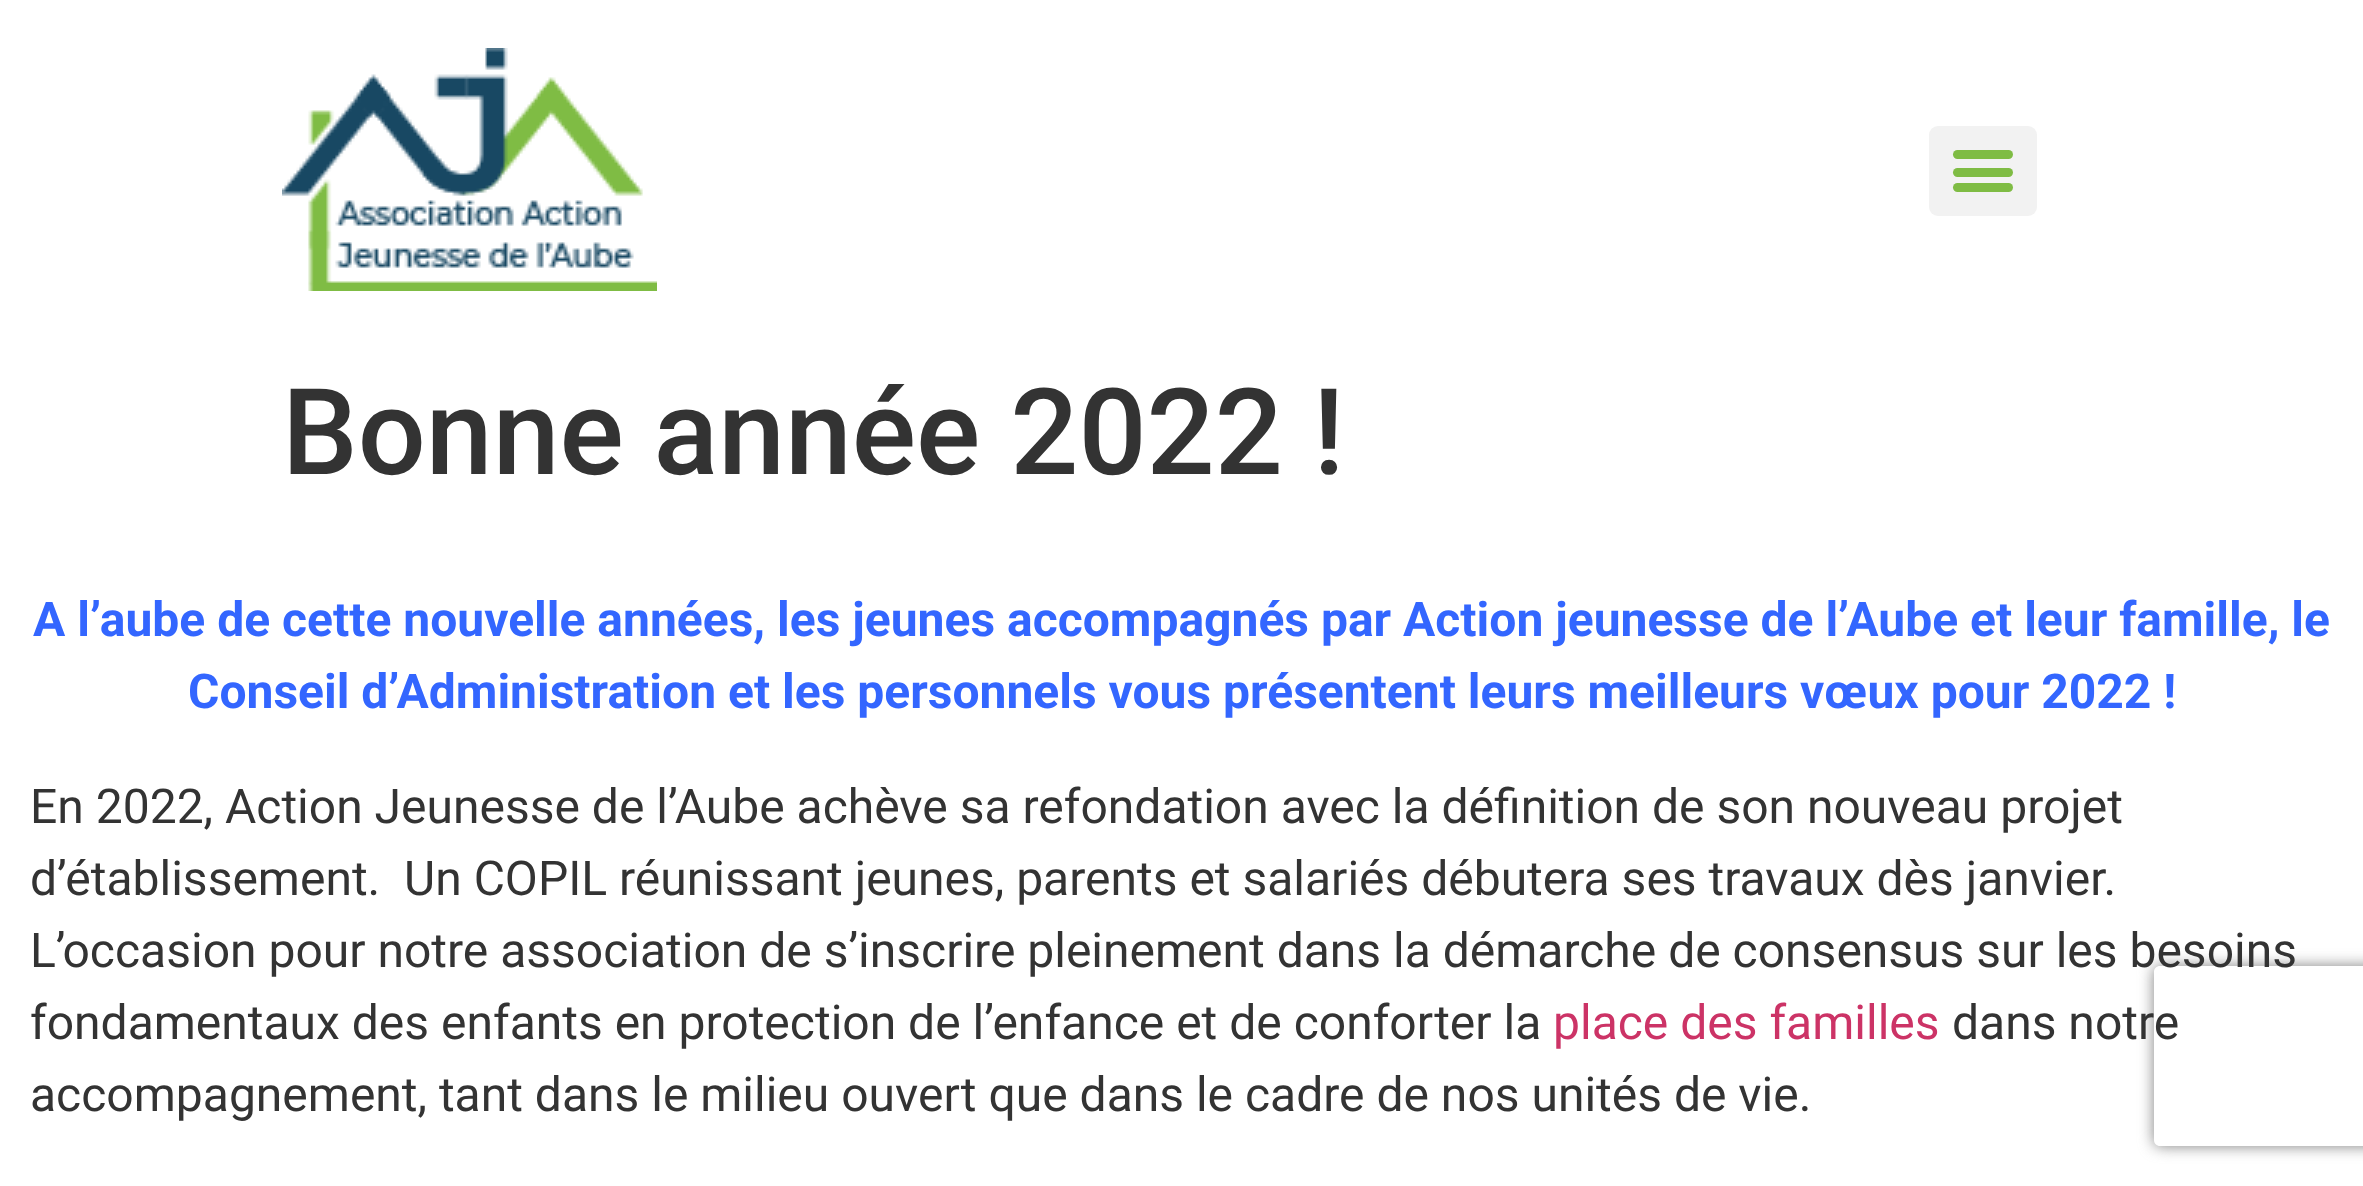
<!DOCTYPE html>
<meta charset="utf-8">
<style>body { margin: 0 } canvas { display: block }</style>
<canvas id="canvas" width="2363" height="1186"></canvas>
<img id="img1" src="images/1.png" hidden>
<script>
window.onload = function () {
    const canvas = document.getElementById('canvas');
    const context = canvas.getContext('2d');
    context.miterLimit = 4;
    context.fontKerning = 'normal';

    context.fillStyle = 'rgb(255, 255, 255)';
    context.fillRect(0, 0, 2363, 1186);
    context.drawImage(document.getElementById('img1'), 282, 48, 375, 243);
    context.fillStyle = 'rgb(242, 242, 242)';
    context.beginPath();
    context.roundRect(1929, 126, 108, 90, 9);
    context.fill();
    context.fillStyle = 'rgb(127, 188, 68)';
    context.beginPath();
    context.roundRect(1953, 168, 60, 9, 4.5);
    context.fill();
    context.beginPath();
    context.roundRect(1953, 150, 60, 9, 4.5);
    context.fill();
    context.beginPath();
    context.roundRect(1953, 183, 60, 9, 4.5);
    context.fill();
    context.save();
    context.beginPath();
    context.moveTo(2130, 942);
    context.lineTo(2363, 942);
    context.lineTo(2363, 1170);
    context.lineTo(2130, 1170);
    context.closePath();
    context.moveTo(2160, 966);
    context.lineTo(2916, 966);
    context.bezierCurveTo(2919.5, 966, 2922, 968.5, 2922, 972);
    context.lineTo(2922, 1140);
    context.bezierCurveTo(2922, 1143.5, 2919.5, 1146, 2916, 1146);
    context.lineTo(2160, 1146);
    context.bezierCurveTo(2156.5, 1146, 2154, 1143.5, 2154, 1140);
    context.lineTo(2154, 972);
    context.bezierCurveTo(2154, 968.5, 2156.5, 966, 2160, 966);
    context.closePath();
    context.clip('evenodd');
    context.fillStyle = 'rgb(128, 128, 128)';
    context.filter = 'blur(7.5px)';
    context.beginPath();
    context.roundRect(2154, 966, 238, 180, 6);
    context.fill();
    context.filter = 'none';
    context.restore();
    context.font = '500 120px Roboto';
    context.fillStyle = 'rgb(51, 51, 51)';
    context.fillText('Bonne année 2022 !', 282, 474);
    context.font = 'bold 48px Roboto';
    context.fillStyle = 'rgb(51, 102, 255)';
    context.fillText('A l’aube de cette nouvelle années, les jeunes accompagnés par Action jeunesse de l’Aube et leur famille, le', 33, 636);
    context.fillText('Conseil d’Administration et les personnels vous présentent leurs meilleurs vœux pour 2022 !', 188, 708);
    context.font = '48px Roboto';
    context.fillStyle = 'rgb(51, 51, 51)';
    context.fillText('En 2022, Action Jeunesse de l’Aube achève sa refondation avec la définition de son nouveau projet', 30, 823);
    context.fillText('d’établissement.  Un COPIL réunissant jeunes, parents et salariés débutera ses travaux dès janvier.', 30, 895);
    context.fillText('L’occasion pour notre association de s’inscrire pleinement dans la démarche de consensus sur les besoins', 30, 967);
    context.fillText('fondamentaux des enfants en protection de l’enfance et de conforter la', 30, 1039);
    context.fillStyle = 'rgb(204, 51, 102)';
    context.fillText('place des familles', 1553, 1039);
    context.fillStyle = 'rgb(51, 51, 51)';
    context.fillText('dans notre', 1952, 1039);
    context.fillText('accompagnement, tant dans le milieu ouvert que dans le cadre de nos unités de vie.', 30, 1111);
};
</script>
